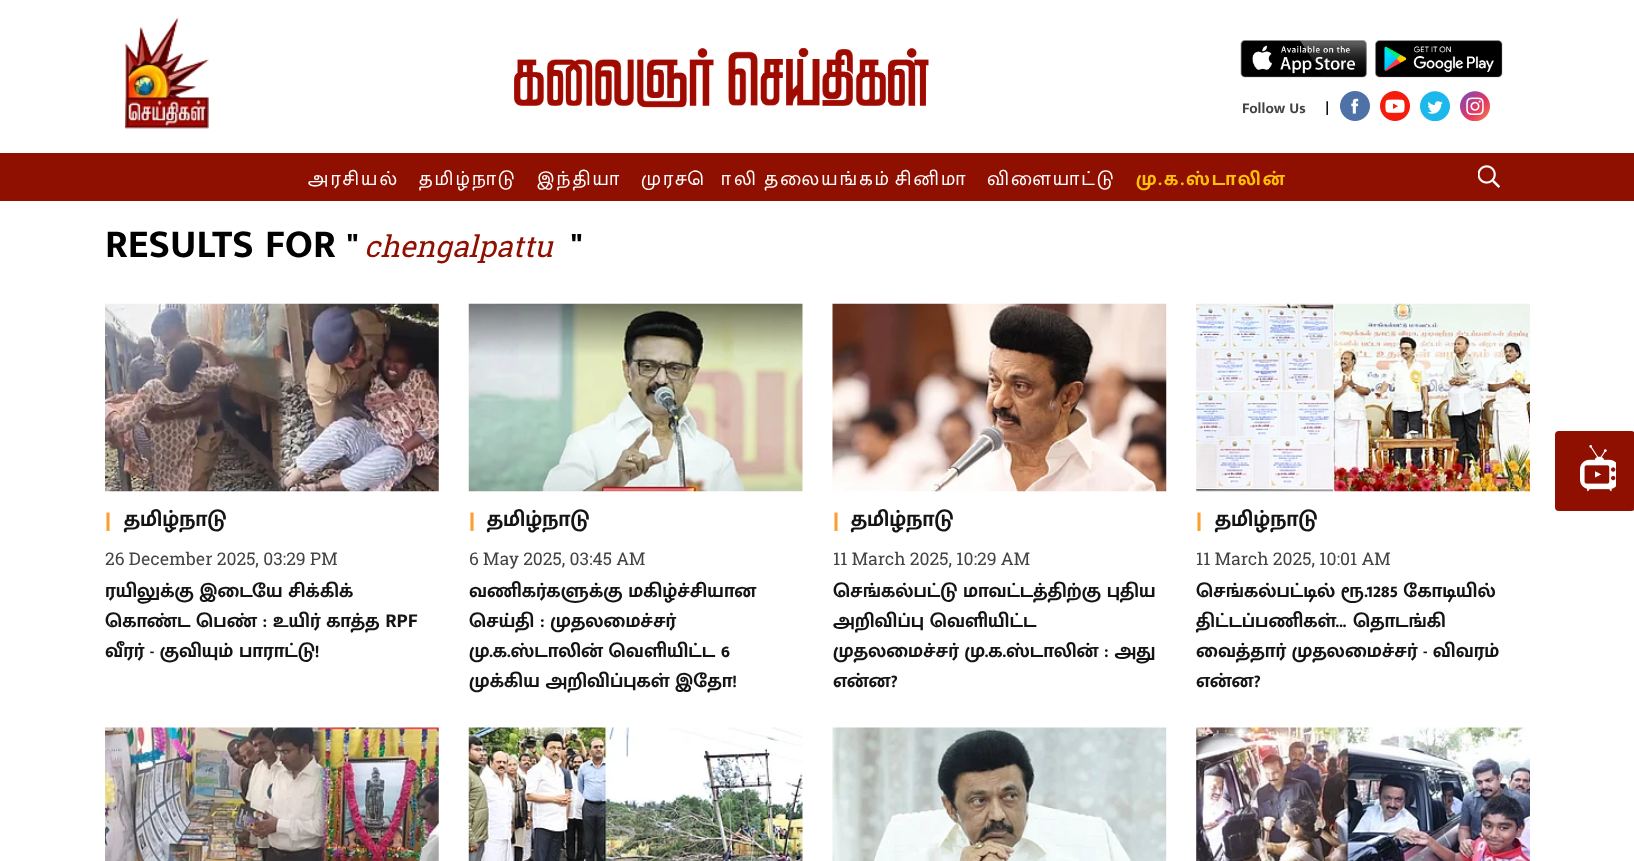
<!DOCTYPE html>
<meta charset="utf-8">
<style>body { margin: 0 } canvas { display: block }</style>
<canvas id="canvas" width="1634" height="861"></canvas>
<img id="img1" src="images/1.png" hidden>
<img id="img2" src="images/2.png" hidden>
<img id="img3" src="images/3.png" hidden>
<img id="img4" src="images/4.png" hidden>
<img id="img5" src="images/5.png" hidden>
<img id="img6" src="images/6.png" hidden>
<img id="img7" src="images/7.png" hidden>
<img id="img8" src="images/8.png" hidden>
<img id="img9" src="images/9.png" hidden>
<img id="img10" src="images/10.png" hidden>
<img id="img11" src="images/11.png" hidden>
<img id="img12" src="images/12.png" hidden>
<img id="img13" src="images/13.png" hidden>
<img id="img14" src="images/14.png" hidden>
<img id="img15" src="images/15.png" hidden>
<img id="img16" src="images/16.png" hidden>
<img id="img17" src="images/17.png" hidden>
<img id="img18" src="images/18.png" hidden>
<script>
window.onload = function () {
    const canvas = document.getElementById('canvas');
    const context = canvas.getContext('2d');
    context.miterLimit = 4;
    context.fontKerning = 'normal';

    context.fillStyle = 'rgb(255, 255, 255)';
    context.fillRect(0, 0, 1634, 861);
    context.drawImage(document.getElementById('img1'), 125, 17, 84, 112);
    context.drawImage(document.getElementById('img2'), 514, 48, 415, 60);
    context.drawImage(document.getElementById('img3'), 1240, 40, 127, 38);
    context.drawImage(document.getElementById('img4'), 1375, 40, 128, 38);
    context.drawImage(document.getElementById('img5'), 1340, 91, 30, 30);
    context.drawImage(document.getElementById('img6'), 1380, 91, 30, 30);
    context.drawImage(document.getElementById('img7'), 1420, 91, 30, 30);
    context.drawImage(document.getElementById('img8'), 1460, 91, 30, 30);
    context.fillStyle = 'rgb(143, 15, 1)';
    context.fillRect(0, 153, 1634, 48);
    context.drawImage(document.getElementById('img9'), 1478, 165, 22, 23);
    context.drawImage(document.getElementById('img10'), 105, 303, 334, 189);
    context.drawImage(document.getElementById('img11'), 468, 303, 335, 189);
    context.drawImage(document.getElementById('img12'), 832, 303, 335, 189);
    context.drawImage(document.getElementById('img13'), 1196, 303, 334, 189);
    context.drawImage(document.getElementById('img14'), 105, 727, 334, 134);
    context.drawImage(document.getElementById('img15'), 468, 727, 335, 134);
    context.drawImage(document.getElementById('img16'), 832, 727, 335, 134);
    context.drawImage(document.getElementById('img17'), 1196, 727, 334, 134);
    context.beginPath();
    context.roundRect(1555, 431, 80, 80, 4);
    context.fill();
    context.drawImage(document.getElementById('img18'), 1580, 445, 36, 47);
    context.font = 'bold 15px Mukta Malar';
    context.fillStyle = 'rgb(67, 67, 67)';
    context.fillText('Follow Us', 1242, 113);
    context.font = '20px Mukta Malar';
    context.fillStyle = 'rgb(0, 0, 0)';
    context.fillText('|', 1325, 113);
    context.letterSpacing = '2.1px';
    context.fillStyle = 'rgb(255, 255, 255)';
    context.fillText('அரசியல்', 308, 185);
    context.fillText('தமிழ்நாடு', 419, 185);
    context.fillText('இந்தியா', 537, 185);
    context.wordSpacing = '-1px';
    context.fillText('முரசொலி தலையங்கம்', 641, 185);
    context.wordSpacing = '0px';
    context.fillText('சினிமா', 895, 185);
    context.fillText('விளையாட்டு', 987, 185);
    context.font = 'bold 20px Mukta Malar';
    context.fillStyle = 'rgb(255, 192, 7)';
    context.fillText('மு.க.ஸ்டாலின்', 1136, 185);
    context.letterSpacing = '0px';
    context.font = 'bold 40px Mukta Malar';
    context.fillStyle = 'rgb(0, 0, 0)';
    context.fillText('RESULTS FOR "', 105, 257);
    context.font = 'italic 30px Roboto Slab';
    context.fillStyle = 'rgb(143, 15, 1)';
    context.fillText('chengalpattu', 364, 257);
    context.font = 'bold 40px Mukta Malar';
    context.fillStyle = 'rgb(0, 0, 0)';
    context.fillText('"', 571, 257);
    context.font = 'bold 25px Mukta Malar';
    context.fillStyle = 'rgb(250, 160, 47)';
    context.fillText('|', 105, 528);
    context.font = 'bold 22.5px Mukta Malar';
    context.fillStyle = 'rgb(20, 20, 20)';
    context.fillText('தமிழ்நாடு', 124, 526);
    context.font = '17.5px Roboto Slab';
    context.fillStyle = 'rgb(67, 67, 67)';
    context.fillText('26 December 2025, 03:29 PM', 105, 565);
    context.font = 'bold 20px Mukta Malar';
    context.fillStyle = 'rgb(20, 20, 20)';
    context.fillText('ரயிலுக்கு இடையே சிக்கிக்', 105, 597);
    context.fillText('கொண்ட பெண் : உயிர் காத்த RPF', 105, 627);
    context.fillText('வீரர் - குவியும் பாராட்டு!', 105, 657);
    context.font = 'bold 25px Mukta Malar';
    context.fillStyle = 'rgb(250, 160, 47)';
    context.fillText('|', 469, 528);
    context.font = 'bold 22.5px Mukta Malar';
    context.fillStyle = 'rgb(20, 20, 20)';
    context.fillText('தமிழ்நாடு', 487, 526);
    context.font = '17.5px Roboto Slab';
    context.fillStyle = 'rgb(67, 67, 67)';
    context.fillText('6 May 2025, 03:45 AM', 469, 565);
    context.font = 'bold 20px Mukta Malar';
    context.fillStyle = 'rgb(20, 20, 20)';
    context.fillText('வணிகர்களுக்கு மகிழ்ச்சியான', 469, 597);
    context.fillText('செய்தி : முதலமைச்சர்', 469, 627);
    context.fillText('மு.க.ஸ்டாலின் வெளியிட்ட 6', 469, 657);
    context.fillText('முக்கிய அறிவிப்புகள் இதோ!', 469, 687);
    context.font = 'bold 25px Mukta Malar';
    context.fillStyle = 'rgb(250, 160, 47)';
    context.fillText('|', 833, 528);
    context.font = 'bold 22.5px Mukta Malar';
    context.fillStyle = 'rgb(20, 20, 20)';
    context.fillText('தமிழ்நாடு', 851, 526);
    context.font = '17.5px Roboto Slab';
    context.fillStyle = 'rgb(67, 67, 67)';
    context.fillText('11 March 2025, 10:29 AM', 833, 565);
    context.font = 'bold 20px Mukta Malar';
    context.fillStyle = 'rgb(20, 20, 20)';
    context.fillText('செங்கல்பட்டு மாவட்டத்திற்கு புதிய', 833, 597);
    context.fillText('அறிவிப்பு வெளியிட்ட', 833, 627);
    context.fillText('முதலமைச்சர் மு.க.ஸ்டாலின் : அது', 833, 657);
    context.fillText('என்ன?', 833, 687);
    context.font = 'bold 25px Mukta Malar';
    context.fillStyle = 'rgb(250, 160, 47)';
    context.fillText('|', 1196, 528);
    context.font = 'bold 22.5px Mukta Malar';
    context.fillStyle = 'rgb(20, 20, 20)';
    context.fillText('தமிழ்நாடு', 1215, 526);
    context.font = '17.5px Roboto Slab';
    context.fillStyle = 'rgb(67, 67, 67)';
    context.fillText('11 March 2025, 10:01 AM', 1196, 565);
    context.font = 'bold 20px Mukta Malar';
    context.fillStyle = 'rgb(20, 20, 20)';
    context.fillText('செங்கல்பட்டில் ரூ.1285 கோடியில்', 1196, 597);
    context.wordSpacing = '1px';
    context.fillText('திட்டப்பணிகள்... தொடங்கி', 1196, 627);
    context.wordSpacing = '0px';
    context.fillText('வைத்தார் முதலமைச்சர் - விவரம்', 1196, 657);
    context.fillText('என்ன?', 1196, 687);
};
</script>
